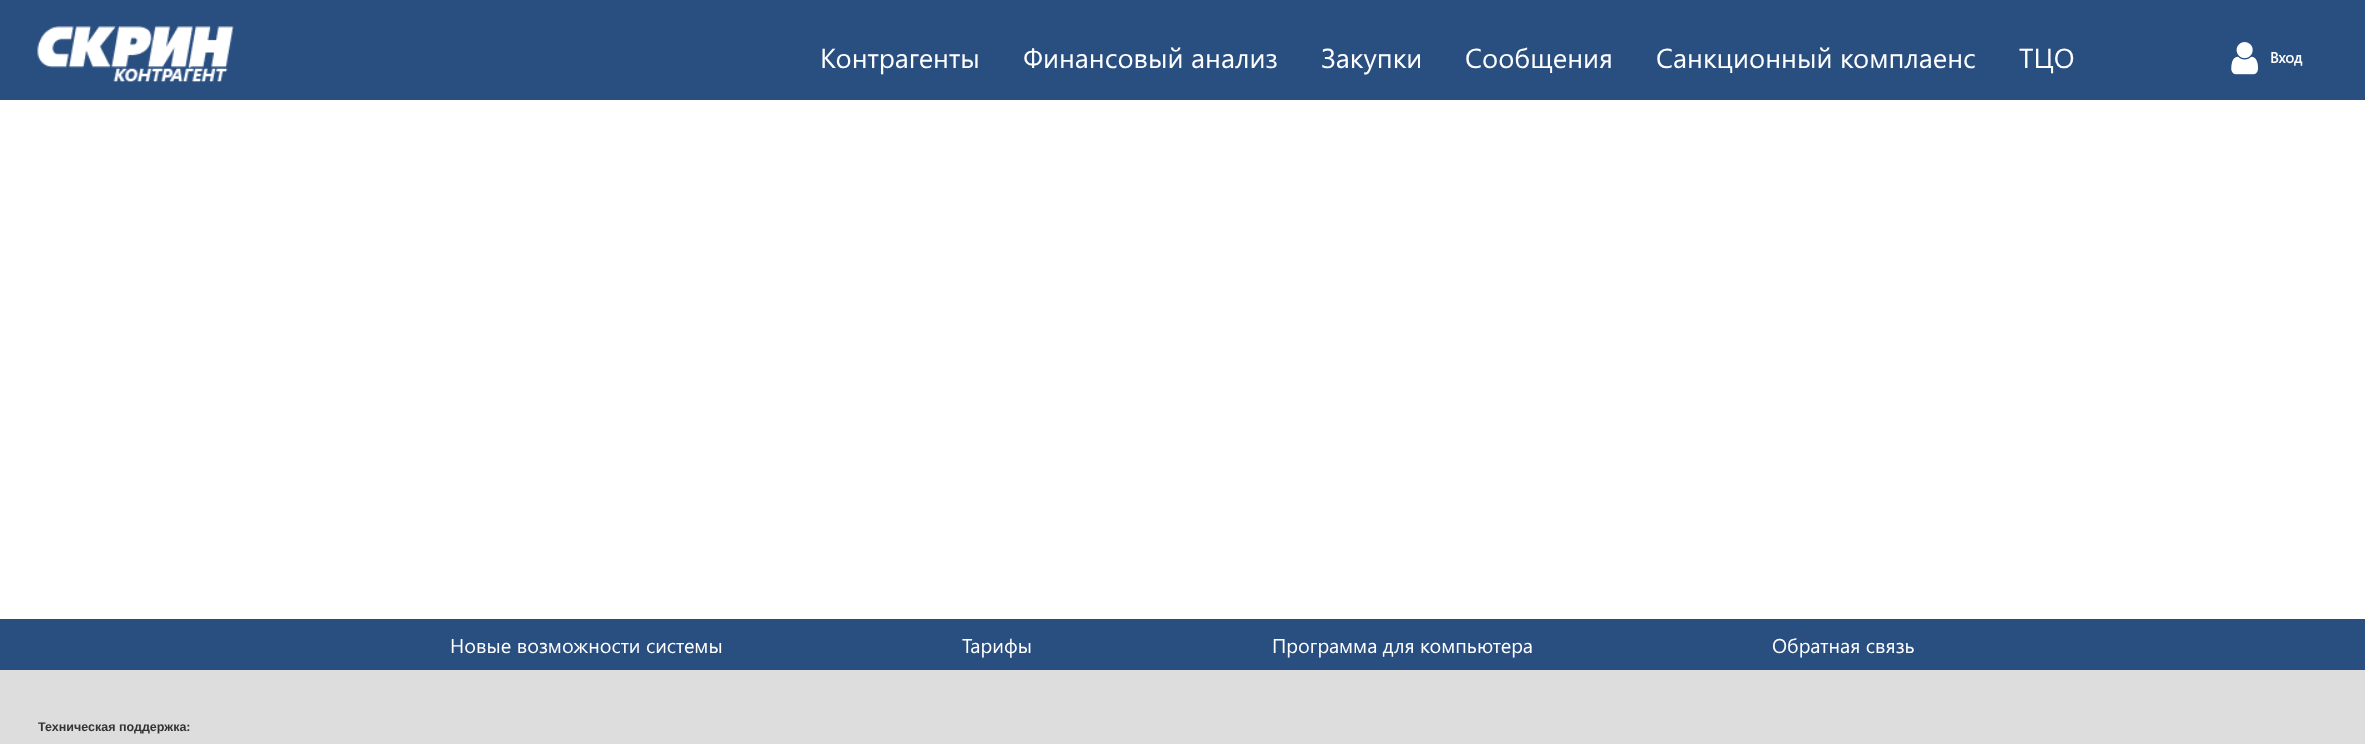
<!DOCTYPE html>
<meta charset="utf-8">
<style>body { margin: 0 } canvas { display: block }</style>
<canvas id="canvas" width="2365" height="744"></canvas>
<img id="img1" src="images/1.png" hidden>
<img id="img2" src="images/2.png" hidden>
<script>
window.onload = function () {
    const canvas = document.getElementById('canvas');
    const context = canvas.getContext('2d');
    context.miterLimit = 4;
    context.fontKerning = 'normal';

    context.fillStyle = 'rgb(255, 255, 255)';
    context.fillRect(0, 0, 2365, 744);
    context.fillStyle = 'rgb(41, 78, 128)';
    context.fillRect(0, 0, 2365, 100);
    context.drawImage(document.getElementById('img1'), 37, 26, 197, 56);
    context.drawImage(document.getElementById('img2'), 2231, 42, 27, 33);
    context.fillRect(0, 619, 2365, 51);
    context.fillStyle = 'rgb(221, 221, 221)';
    context.fillRect(0, 670, 2365, 74);
    context.font = '27.5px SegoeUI';
    context.fillStyle = 'rgb(255, 255, 255)';
    context.fillText('Контрагенты', 820, 68);
    context.fillText('Финансовый анализ', 1023, 68);
    context.fillText('Закупки', 1321, 68);
    context.fillText('Сообщения', 1465, 68);
    context.fillText('Санкционный комплаенс', 1656, 68);
    context.fillText('ТЦО', 2019, 68);
    context.font = 'bold 15px SegoeUI';
    context.fillText('Вход', 2270, 63);
    context.font = '20px SegoeUI';
    context.fillText('Новые возможности системы', 450, 653);
    context.fillText('Тарифы', 962, 653);
    context.fillText('Программа для компьютера', 1272, 653);
    context.fillText('Обратная связь', 1772, 653);
    context.font = 'bold 12.5px Liberation Sans';
    context.fillStyle = 'rgb(51, 51, 51)';
    context.fillText('Техническая поддержка:', 38, 731);
};
</script>
